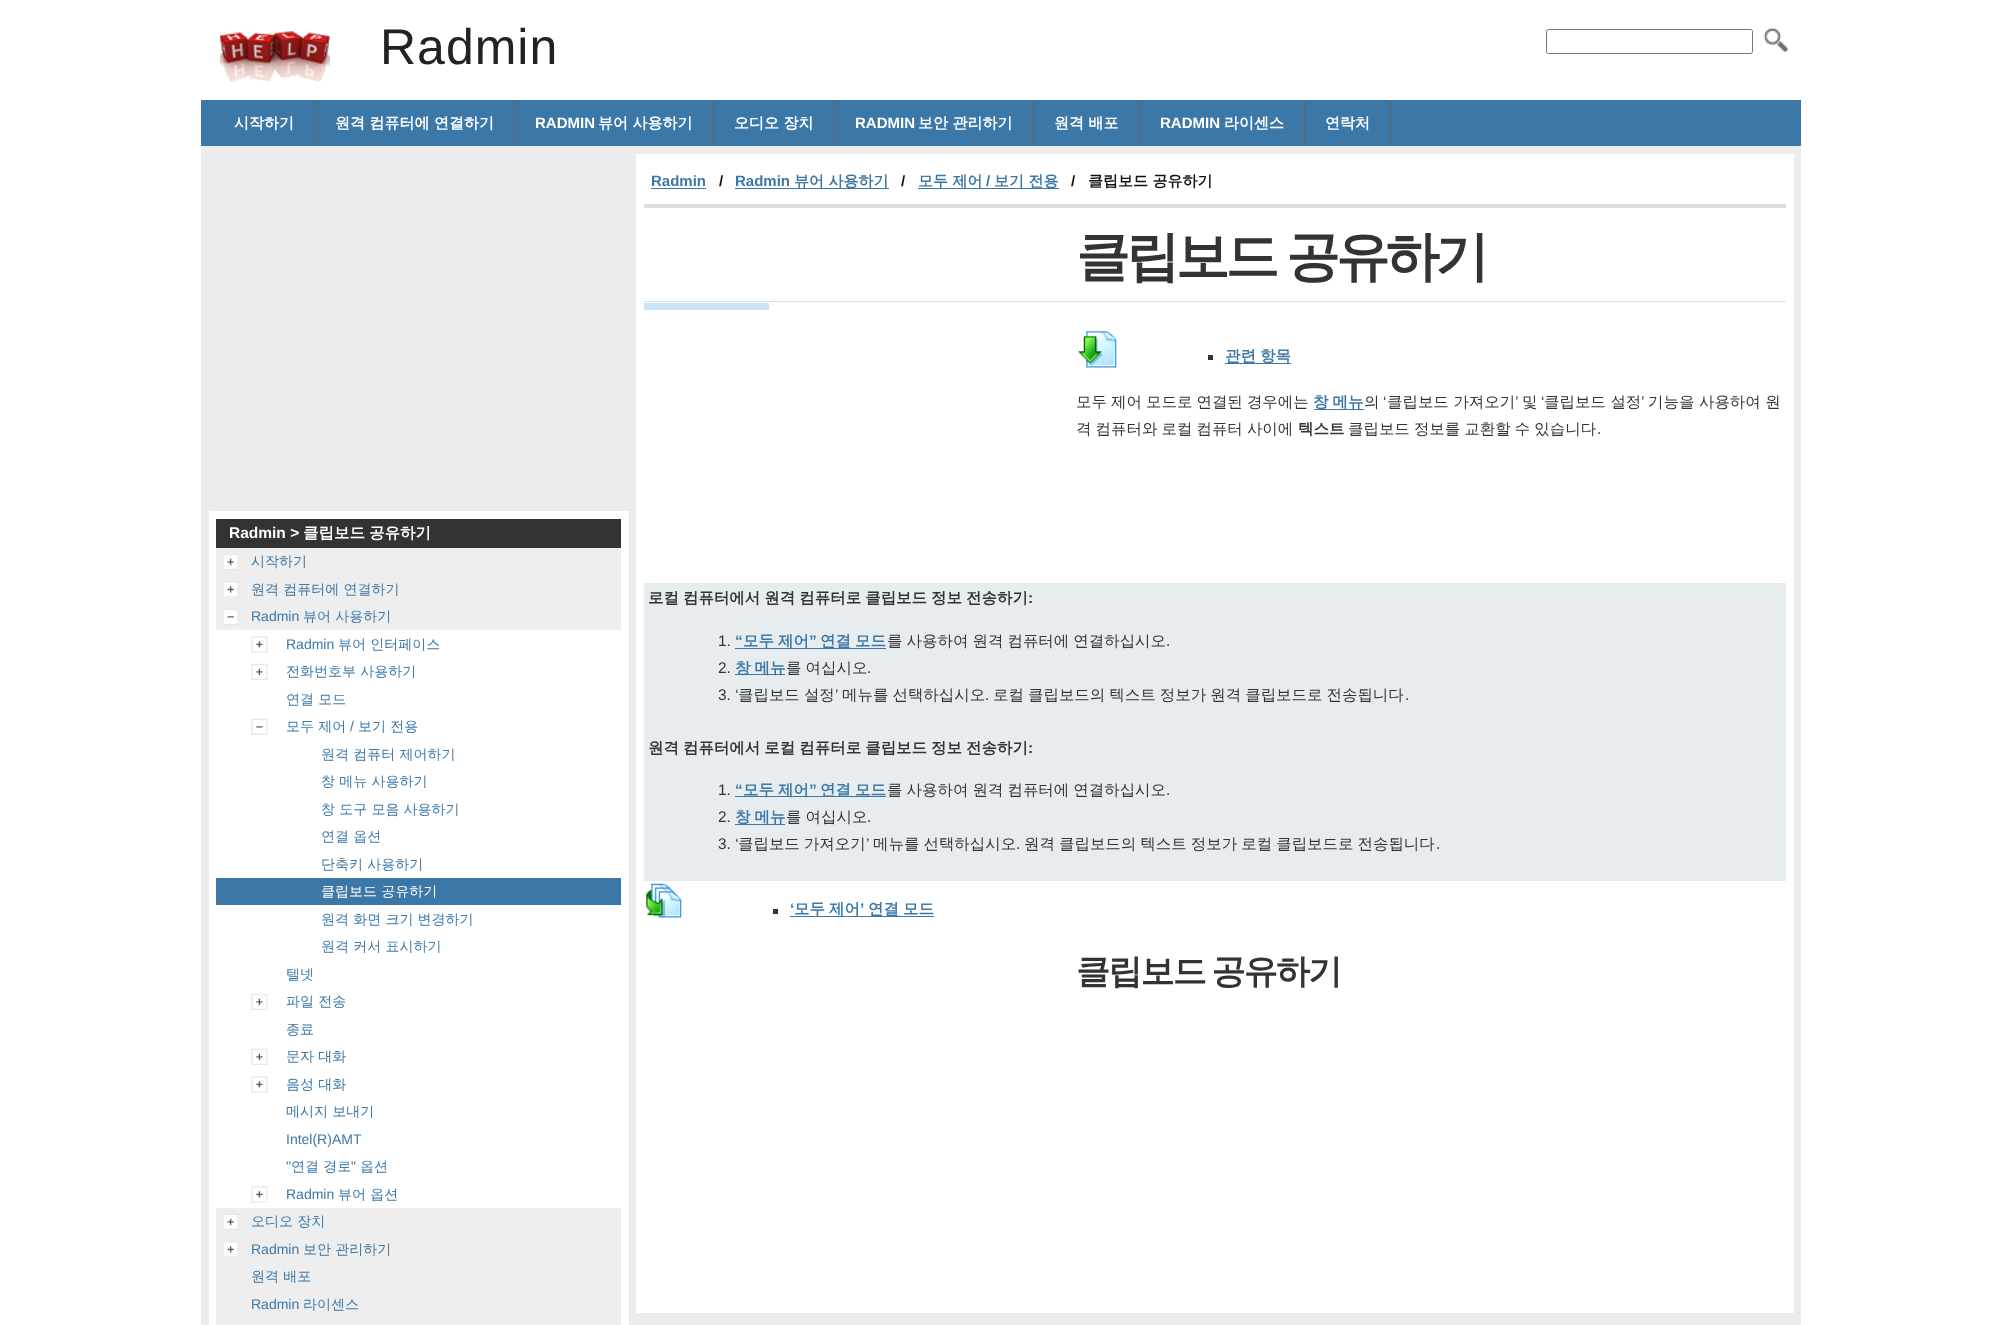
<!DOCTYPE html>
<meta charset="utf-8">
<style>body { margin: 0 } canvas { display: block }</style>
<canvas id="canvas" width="2002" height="1325"></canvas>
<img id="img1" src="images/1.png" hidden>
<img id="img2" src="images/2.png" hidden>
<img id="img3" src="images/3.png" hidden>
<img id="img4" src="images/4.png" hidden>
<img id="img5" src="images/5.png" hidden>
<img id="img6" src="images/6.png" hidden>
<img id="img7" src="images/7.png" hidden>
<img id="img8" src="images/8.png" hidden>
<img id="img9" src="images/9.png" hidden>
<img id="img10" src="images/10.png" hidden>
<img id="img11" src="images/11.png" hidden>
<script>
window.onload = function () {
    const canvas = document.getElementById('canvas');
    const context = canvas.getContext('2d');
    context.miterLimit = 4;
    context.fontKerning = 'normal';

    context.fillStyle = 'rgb(255, 255, 255)';
    context.fillRect(0, 0, 2002, 1325);
    context.drawImage(document.getElementById('img1'), 220, 31, 110, 51);
    context.beginPath();
    context.roundRect(1546.5, 29.5, 206, 24, 2);
    context.strokeStyle = 'rgb(118, 118, 118)';
    context.stroke();
    context.drawImage(document.getElementById('img2'), 1763, 28, 25, 25);
    context.fillStyle = 'rgb(60, 120, 167)';
    context.fillRect(201, 100, 1600, 46);
    context.fillStyle = 'rgb(102, 102, 102)';
    context.fillRect(314, 100, 1, 46);
    context.fillRect(514, 100, 1, 46);
    context.fillRect(713, 100, 1, 46);
    context.fillRect(834, 100, 1, 46);
    context.fillRect(1033, 100, 1, 46);
    context.fillRect(1139, 100, 1, 46);
    context.fillRect(1304, 100, 1, 46);
    context.fillRect(1390, 100, 1, 46);
    context.fillStyle = 'rgb(236, 236, 236)';
    context.fillRect(201, 146, 1600, 1179);
    context.fillStyle = 'rgb(255, 255, 255)';
    context.fillRect(209, 511, 420, 814);
    context.fillStyle = 'rgb(51, 51, 51)';
    context.fillRect(216, 519, 405, 29);
    context.fillStyle = 'rgb(238, 238, 238)';
    context.fillRect(216, 548, 405, 82);
    context.drawImage(document.getElementById('img3'), 223, 554, 16, 16);
    context.drawImage(document.getElementById('img4'), 223, 581, 16, 16);
    context.drawImage(document.getElementById('img5'), 223, 609, 16, 16);
    context.drawImage(document.getElementById('img6'), 251, 636, 17, 17);
    context.drawImage(document.getElementById('img7'), 251, 663, 17, 17);
    context.drawImage(document.getElementById('img8'), 251, 718, 17, 17);
    context.fillStyle = 'rgb(60, 120, 167)';
    context.fillRect(216, 878, 405, 27);
    context.drawImage(document.getElementById('img7'), 251, 993, 17, 17);
    context.drawImage(document.getElementById('img7'), 251, 1048, 17, 17);
    context.drawImage(document.getElementById('img6'), 251, 1076, 17, 17);
    context.drawImage(document.getElementById('img6'), 251, 1186, 17, 17);
    context.fillStyle = 'rgb(238, 238, 238)';
    context.fillRect(216, 1208, 405, 117);
    context.drawImage(document.getElementById('img3'), 223, 1214, 16, 16);
    context.drawImage(document.getElementById('img9'), 223, 1241, 16, 16);
    context.fillStyle = 'rgb(255, 255, 255)';
    context.fillRect(636, 154, 1158, 1159);
    context.fillStyle = 'rgb(221, 221, 221)';
    context.fillRect(644, 204, 1142, 4);
    context.fillStyle = 'rgb(60, 120, 167)';
    context.fillRect(651, 188, 55, 1);
    context.fillRect(735, 188, 154, 1);
    context.fillRect(918, 188, 141, 1);
    context.fillStyle = 'rgb(203, 227, 244)';
    context.fillRect(644, 301, 1142, 1);
    context.fillRect(644, 303, 125, 7);
    context.drawImage(document.getElementById('img10'), 1078, 331, 39, 37);
    context.fillStyle = 'rgb(51, 51, 51)';
    context.fillRect(1208, 355, 5, 5);
    context.fillStyle = 'rgb(60, 120, 167)';
    context.fillRect(1225, 363, 66, 1);
    context.fillRect(1314, 409, 50, 1);
    context.fillStyle = 'rgb(231, 236, 239)';
    context.fillRect(644, 583, 1142, 298);
    context.fillStyle = 'rgb(60, 120, 167)';
    context.fillRect(735, 648, 151, 1);
    context.fillRect(735, 674, 50, 1);
    context.fillRect(735, 796, 151, 1);
    context.fillRect(735, 824, 50, 1);
    context.drawImage(document.getElementById('img11'), 646, 883, 36, 35);
    context.fillRect(790, 916, 144, 1);
    context.fillStyle = 'rgb(51, 51, 51)';
    context.fillRect(773, 909, 5, 5);
    context.letterSpacing = '1px';
    context.font = '50px Liberation Sans';
    context.fillStyle = 'rgb(34, 34, 34)';
    context.fillText('Radmin', 380, 64);
    context.letterSpacing = '0px';
    context.font = 'bold 15px WenQuanYi Zen Hei';
    context.fillStyle = 'rgb(255, 255, 255)';
    context.fillText('시작하기', 234, 128);
    context.fillText('원격 컴퓨터에 연결하기', 335, 128);
    context.font = 'bold 15px Liberation Sans';
    context.fillText('RADMIN', 535, 128);
    context.font = 'bold 15px WenQuanYi Zen Hei';
    context.fillText('뷰어 사용하기', 598, 128);
    context.fillText('오디오 장치', 734, 128);
    context.font = 'bold 15px Liberation Sans';
    context.fillText('RADMIN', 855, 128);
    context.font = 'bold 15px WenQuanYi Zen Hei';
    context.fillText('보안 관리하기', 918, 128);
    context.fillText('원격 배포', 1054, 128);
    context.font = 'bold 15px Liberation Sans';
    context.fillText('RADMIN', 1160, 128);
    context.font = 'bold 15px WenQuanYi Zen Hei';
    context.fillText('라이센스', 1224, 128);
    context.fillText('연락처', 1325, 128);
    context.font = 'bold 15.5px Liberation Sans';
    context.fillText('Radmin >', 229, 538);
    context.font = 'bold 15.5px WenQuanYi Zen Hei';
    context.fillText('클립보드', 303, 538);
    context.fillText('공유하기', 369, 538);
    context.font = '500 14px WenQuanYi Zen Hei';
    context.fillStyle = 'rgb(60, 120, 167)';
    context.fillText('시작하기', 251, 566);
    context.fillText('원격 컴퓨터에 연결하기', 251, 594);
    context.font = '14px Liberation Sans';
    context.fillText('Radmin', 251, 621);
    context.font = '500 14px WenQuanYi Zen Hei';
    context.fillText('뷰어 사용하기', 303, 621);
    context.font = '14px Liberation Sans';
    context.fillText('Radmin', 286, 649);
    context.font = '500 14px WenQuanYi Zen Hei';
    context.fillText('뷰어 인터페이스', 338, 649);
    context.fillText('전화번호부 사용하기', 286, 676);
    context.fillText('연결 모드', 286, 704);
    context.fillText('모두 제어', 286, 731);
    context.font = '14px Liberation Sans';
    context.fillText('/', 350, 731);
    context.font = '500 14px WenQuanYi Zen Hei';
    context.fillText('보기 전용', 358, 731);
    context.fillText('원격 컴퓨터 제어하기', 321, 759);
    context.fillText('창 메뉴 사용하기', 321, 786);
    context.fillText('창 도구 모음 사용하기', 321, 814);
    context.fillText('연결 옵션', 321, 841);
    context.fillText('단축키 사용하기', 321, 869);
    context.fillStyle = 'rgb(255, 255, 255)';
    context.fillText('클립보드 공유하기', 321, 896);
    context.fillStyle = 'rgb(60, 120, 167)';
    context.fillText('원격 화면 크기 변경하기', 321, 924);
    context.fillText('원격 커서 표시하기', 321, 951);
    context.fillText('텔넷', 286, 979);
    context.fillText('파일 전송', 286, 1006);
    context.fillText('종료', 286, 1034);
    context.fillText('문자 대화', 286, 1061);
    context.fillText('음성 대화', 286, 1089);
    context.fillText('메시지 보내기', 286, 1116);
    context.font = '14px Liberation Sans';
    context.fillText('Intel(R)AMT', 286, 1144);
    context.fillText('"', 286, 1171);
    context.font = '500 14px WenQuanYi Zen Hei';
    context.fillText('연결 경로', 291, 1171);
    context.font = '14px Liberation Sans';
    context.fillText('"', 351, 1171);
    context.font = '500 14px WenQuanYi Zen Hei';
    context.fillText('옵션', 360, 1171);
    context.font = '14px Liberation Sans';
    context.fillText('Radmin', 286, 1199);
    context.font = '500 14px WenQuanYi Zen Hei';
    context.fillText('뷰어 옵션', 338, 1199);
    context.fillText('오디오 장치', 251, 1226);
    context.font = '14px Liberation Sans';
    context.fillText('Radmin', 251, 1254);
    context.font = '500 14px WenQuanYi Zen Hei';
    context.fillText('보안 관리하기', 303, 1254);
    context.fillText('원격 배포', 251, 1281);
    context.font = '14px Liberation Sans';
    context.fillText('Radmin', 251, 1309);
    context.font = '500 14px WenQuanYi Zen Hei';
    context.fillText('라이센스', 303, 1309);
    context.font = 'bold 15px Liberation Sans';
    context.fillText('Radmin', 651, 186);
    context.fillStyle = 'rgb(17, 17, 17)';
    context.fillText('/', 719, 186);
    context.fillStyle = 'rgb(60, 120, 167)';
    context.fillText('Radmin', 735, 186);
    context.font = 'bold 15px WenQuanYi Zen Hei';
    context.fillText('뷰어 사용하기', 794, 186);
    context.font = 'bold 15px Liberation Sans';
    context.fillStyle = 'rgb(17, 17, 17)';
    context.fillText('/', 901, 186);
    context.font = 'bold 15px WenQuanYi Zen Hei';
    context.fillStyle = 'rgb(60, 120, 167)';
    context.fillText('모두 제어', 918, 186);
    context.font = 'bold 15px Liberation Sans';
    context.fillText('/', 986, 186);
    context.font = 'bold 15px WenQuanYi Zen Hei';
    context.fillText('보기 전용', 994, 186);
    context.font = 'bold 15px Liberation Sans';
    context.fillStyle = 'rgb(17, 17, 17)';
    context.fillText('/', 1071, 186);
    context.font = 'bold 15px WenQuanYi Zen Hei';
    context.fillText('클립보드 공유하기', 1088, 186);
    context.letterSpacing = '-4.25px';
    context.wordSpacing = '-1px';
    context.font = 'bold 54px WenQuanYi Zen Hei';
    context.fillStyle = 'rgb(51, 51, 51)';
    context.fillText('클립보드 공유하기', 1076, 275);
    context.letterSpacing = '0px';
    context.wordSpacing = '-0.5px';
    context.font = 'bold 15.45px WenQuanYi Zen Hei';
    context.fillStyle = 'rgb(60, 120, 167)';
    context.fillText('관련 항목', 1225, 361);
    context.font = '500 15.45px WenQuanYi Zen Hei';
    context.fillStyle = 'rgb(51, 51, 51)';
    context.fillText('모두 제어 모드로 연결된 경우에는', 1076, 407);
    context.font = 'bold 15.45px WenQuanYi Zen Hei';
    context.fillStyle = 'rgb(60, 120, 167)';
    context.fillText('창 메뉴', 1313, 407);
    context.wordSpacing = '0px';
    context.font = '500 15.45px WenQuanYi Zen Hei';
    context.fillStyle = 'rgb(51, 51, 51)';
    context.fillText('의', 1364, 407);
    context.font = '15.45px Liberation Sans';
    context.fillText('‘', 1383, 407);
    context.font = '500 15.45px WenQuanYi Zen Hei';
    context.fillText('클립보드 가져오기', 1387, 407);
    context.font = '15.45px Liberation Sans';
    context.fillText('’', 1515, 407);
    context.font = '500 15.45px WenQuanYi Zen Hei';
    context.fillText('및', 1522, 407);
    context.font = '15.45px Liberation Sans';
    context.fillText('‘', 1541, 407);
    context.font = '500 15.45px WenQuanYi Zen Hei';
    context.fillText('클립보드 설정', 1544, 407);
    context.font = '15.45px Liberation Sans';
    context.fillText('’', 1641, 407);
    context.font = '500 15.45px WenQuanYi Zen Hei';
    context.fillText('기능을 사용하여 원', 1648, 407);
    context.wordSpacing = '-0.5px';
    context.fillText('격 컴퓨터와 로컬 컴퓨터 사이에', 1076, 434);
    context.wordSpacing = '0px';
    context.font = 'bold 15.45px WenQuanYi Zen Hei';
    context.fillText('텍스트', 1298, 434);
    context.wordSpacing = '-0.5px';
    context.font = '500 15.45px WenQuanYi Zen Hei';
    context.fillText('클립보드 정보를 교환할 수 있습니다', 1348, 434);
    context.wordSpacing = '0px';
    context.font = '15.45px Liberation Sans';
    context.fillText('.', 1597, 434);
    context.wordSpacing = '-0.5px';
    context.font = 'bold 15.45px WenQuanYi Zen Hei';
    context.fillText('로컬 컴퓨터에서 원격 컴퓨터로 클립보드 정보 전송하기', 648, 603);
    context.wordSpacing = '0px';
    context.font = 'bold 15.45px Liberation Sans';
    context.fillText(':', 1028, 603);
    context.font = '15.45px Liberation Sans';
    context.fillText('1.', 718, 646);
    context.font = 'bold 15.45px Liberation Sans';
    context.fillStyle = 'rgb(60, 120, 167)';
    context.fillText('“', 735, 646);
    context.wordSpacing = '-0.5px';
    context.font = 'bold 15.45px WenQuanYi Zen Hei';
    context.fillText('모두 제어', 743, 646);
    context.wordSpacing = '0px';
    context.font = 'bold 15.45px Liberation Sans';
    context.fillText('”', 809, 646);
    context.wordSpacing = '-0.5px';
    context.font = 'bold 15.45px WenQuanYi Zen Hei';
    context.fillText('연결 모드', 820, 646);
    context.font = '500 15.45px WenQuanYi Zen Hei';
    context.fillStyle = 'rgb(51, 51, 51)';
    context.fillText('를 사용하여 원격 컴퓨터에 연결하십시오', 887, 646);
    context.wordSpacing = '0px';
    context.font = '15.45px Liberation Sans';
    context.fillText('.', 1166, 646);
    context.fillText('2.', 718, 673);
    context.wordSpacing = '-0.5px';
    context.font = 'bold 15.45px WenQuanYi Zen Hei';
    context.fillStyle = 'rgb(60, 120, 167)';
    context.fillText('창 메뉴', 735, 673);
    context.font = '500 15.45px WenQuanYi Zen Hei';
    context.fillStyle = 'rgb(51, 51, 51)';
    context.fillText('를 여십시오', 786, 673);
    context.wordSpacing = '0px';
    context.font = '15.45px Liberation Sans';
    context.fillText('.', 867, 673);
    context.fillText('3. ‘', 718, 700);
    context.wordSpacing = '-0.5px';
    context.font = '500 15.45px WenQuanYi Zen Hei';
    context.fillText('클립보드 설정', 738, 700);
    context.wordSpacing = '0px';
    context.font = '15.45px Liberation Sans';
    context.fillText('’', 835, 700);
    context.wordSpacing = '-0.5px';
    context.font = '500 15.45px WenQuanYi Zen Hei';
    context.fillText('메뉴를 선택하십시오', 842, 700);
    context.fillText('로컬 클립보드의 텍스트 정보가 원격 클립보드로 전송됩니다', 993, 700);
    context.wordSpacing = '0px';
    context.font = '15.45px Liberation Sans';
    context.fillText('.', 985, 700);
    context.fillText('.', 1405, 700);
    context.wordSpacing = '-0.5px';
    context.font = 'bold 15.45px WenQuanYi Zen Hei';
    context.fillText('원격 컴퓨터에서 로컬 컴퓨터로 클립보드 정보 전송하기', 648, 753);
    context.wordSpacing = '0px';
    context.font = 'bold 15.45px Liberation Sans';
    context.fillText(':', 1028, 753);
    context.font = '15.45px Liberation Sans';
    context.fillText('1.', 718, 795);
    context.font = 'bold 15.45px Liberation Sans';
    context.fillStyle = 'rgb(60, 120, 167)';
    context.fillText('“', 735, 795);
    context.wordSpacing = '-0.5px';
    context.font = 'bold 15.45px WenQuanYi Zen Hei';
    context.fillText('모두 제어', 743, 795);
    context.wordSpacing = '0px';
    context.font = 'bold 15.45px Liberation Sans';
    context.fillText('”', 809, 795);
    context.wordSpacing = '-0.5px';
    context.font = 'bold 15.45px WenQuanYi Zen Hei';
    context.fillText('연결 모드', 820, 795);
    context.font = '500 15.45px WenQuanYi Zen Hei';
    context.fillStyle = 'rgb(51, 51, 51)';
    context.fillText('를 사용하여 원격 컴퓨터에 연결하십시오', 887, 795);
    context.wordSpacing = '0px';
    context.font = '15.45px Liberation Sans';
    context.fillText('.', 1166, 795);
    context.fillText('2.', 718, 822);
    context.wordSpacing = '-0.5px';
    context.font = 'bold 15.45px WenQuanYi Zen Hei';
    context.fillStyle = 'rgb(60, 120, 167)';
    context.fillText('창 메뉴', 735, 822);
    context.font = '500 15.45px WenQuanYi Zen Hei';
    context.fillStyle = 'rgb(51, 51, 51)';
    context.fillText('를 여십시오', 786, 822);
    context.wordSpacing = '0px';
    context.font = '15.45px Liberation Sans';
    context.fillText('.', 867, 822);
    context.fillText('3. ‘', 718, 849);
    context.wordSpacing = '-0.5px';
    context.font = '500 15.45px WenQuanYi Zen Hei';
    context.fillText('클립보드 가져오기', 738, 849);
    context.wordSpacing = '0px';
    context.font = '15.45px Liberation Sans';
    context.fillText('’', 866, 849);
    context.wordSpacing = '-0.5px';
    context.font = '500 15.45px WenQuanYi Zen Hei';
    context.fillText('메뉴를 선택하십시오', 873, 849);
    context.fillText('원격 클립보드의 텍스트 정보가 로컬 클립보드로 전송됩니다', 1024, 849);
    context.wordSpacing = '0px';
    context.font = '15.45px Liberation Sans';
    context.fillText('.', 1016, 849);
    context.fillText('.', 1436, 849);
    context.font = 'bold 15.45px Liberation Sans';
    context.fillStyle = 'rgb(60, 120, 167)';
    context.fillText('‘', 790, 914);
    context.wordSpacing = '-0.5px';
    context.font = 'bold 15.45px WenQuanYi Zen Hei';
    context.fillText('모두 제어', 794, 914);
    context.wordSpacing = '0px';
    context.font = 'bold 15.45px Liberation Sans';
    context.fillText('’', 860, 914);
    context.wordSpacing = '-0.5px';
    context.font = 'bold 15.45px WenQuanYi Zen Hei';
    context.fillText('연결 모드', 868, 914);
    context.letterSpacing = '-1.75px';
    context.wordSpacing = '-2px';
    context.font = 'bold 34px WenQuanYi Zen Hei';
    context.fillStyle = 'rgb(51, 51, 51)';
    context.fillText('클립보드 공유하기', 1076, 983);
};
</script>
